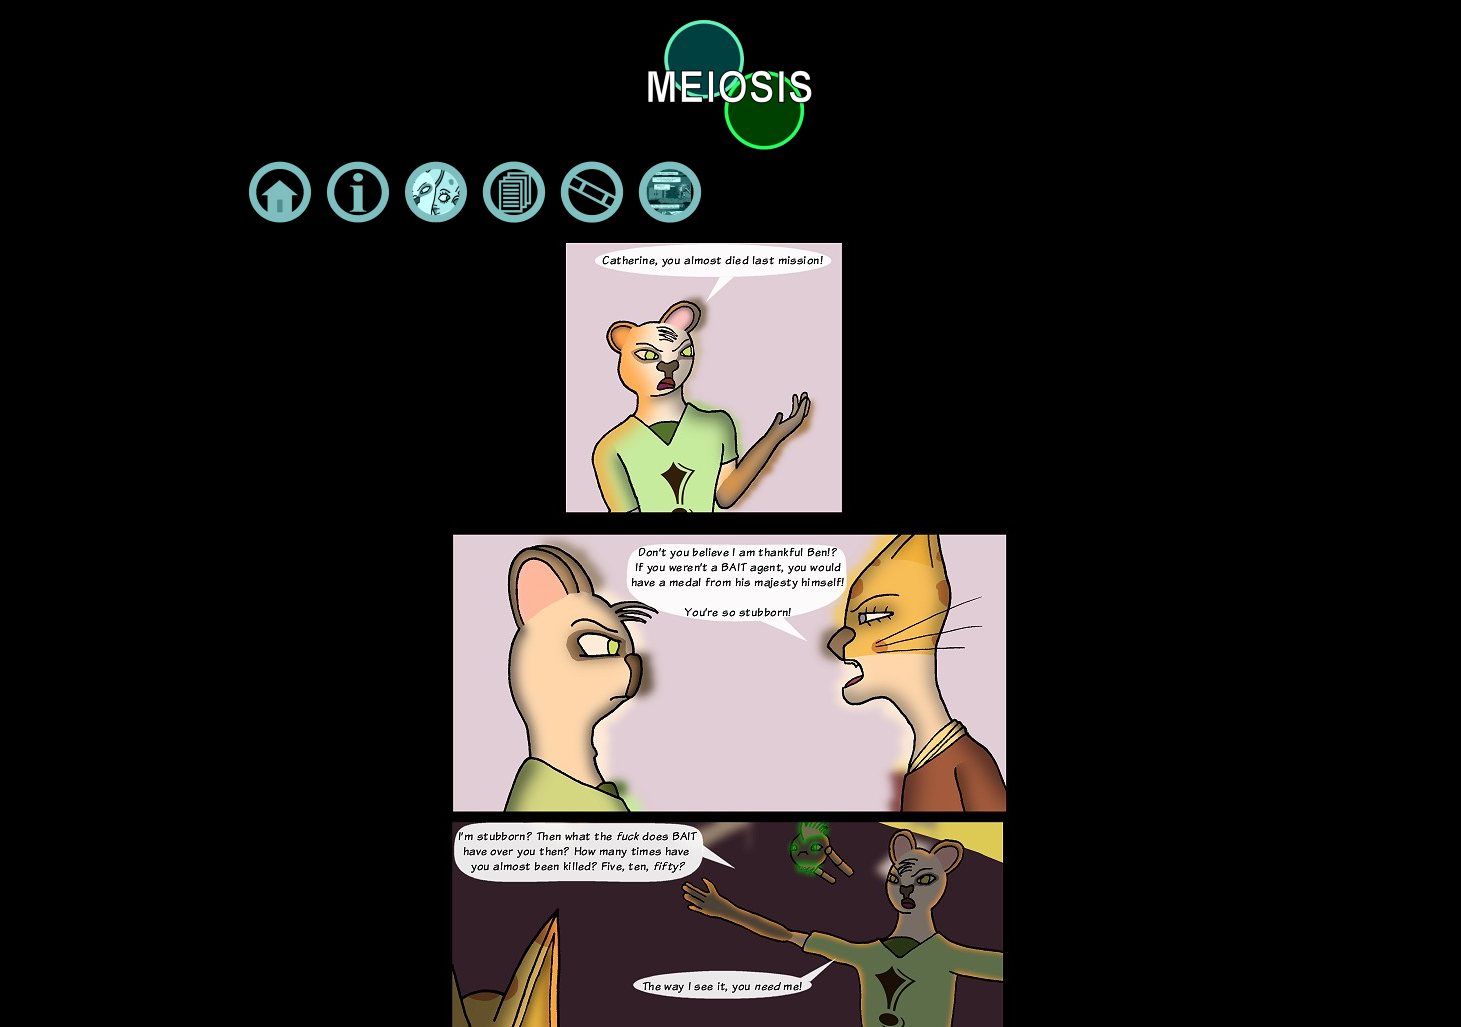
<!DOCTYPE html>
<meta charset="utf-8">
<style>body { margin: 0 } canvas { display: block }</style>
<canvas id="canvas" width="1461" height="1027"></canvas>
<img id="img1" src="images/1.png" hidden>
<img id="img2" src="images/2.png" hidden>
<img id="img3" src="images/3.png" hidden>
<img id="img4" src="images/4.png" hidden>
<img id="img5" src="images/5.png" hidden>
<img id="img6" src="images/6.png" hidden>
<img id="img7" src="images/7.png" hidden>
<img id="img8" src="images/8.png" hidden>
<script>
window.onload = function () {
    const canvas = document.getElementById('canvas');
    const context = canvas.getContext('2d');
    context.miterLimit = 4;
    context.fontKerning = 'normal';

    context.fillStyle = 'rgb(0, 0, 0)';
    context.fillRect(0, 0, 1461, 1027);
    context.drawImage(document.getElementById('img1'), 648, 19, 164, 131);
    context.drawImage(document.getElementById('img2'), 248, 161, 64, 62);
    context.drawImage(document.getElementById('img3'), 326, 161, 64, 62);
    context.drawImage(document.getElementById('img4'), 405, 161, 62, 62);
    context.drawImage(document.getElementById('img5'), 482, 161, 64, 62);
    context.drawImage(document.getElementById('img6'), 560, 161, 64, 62);
    context.drawImage(document.getElementById('img7'), 638, 161, 64, 62);
    context.drawImage(document.getElementById('img8'), 443, 240, 574, 787);
};
</script>
